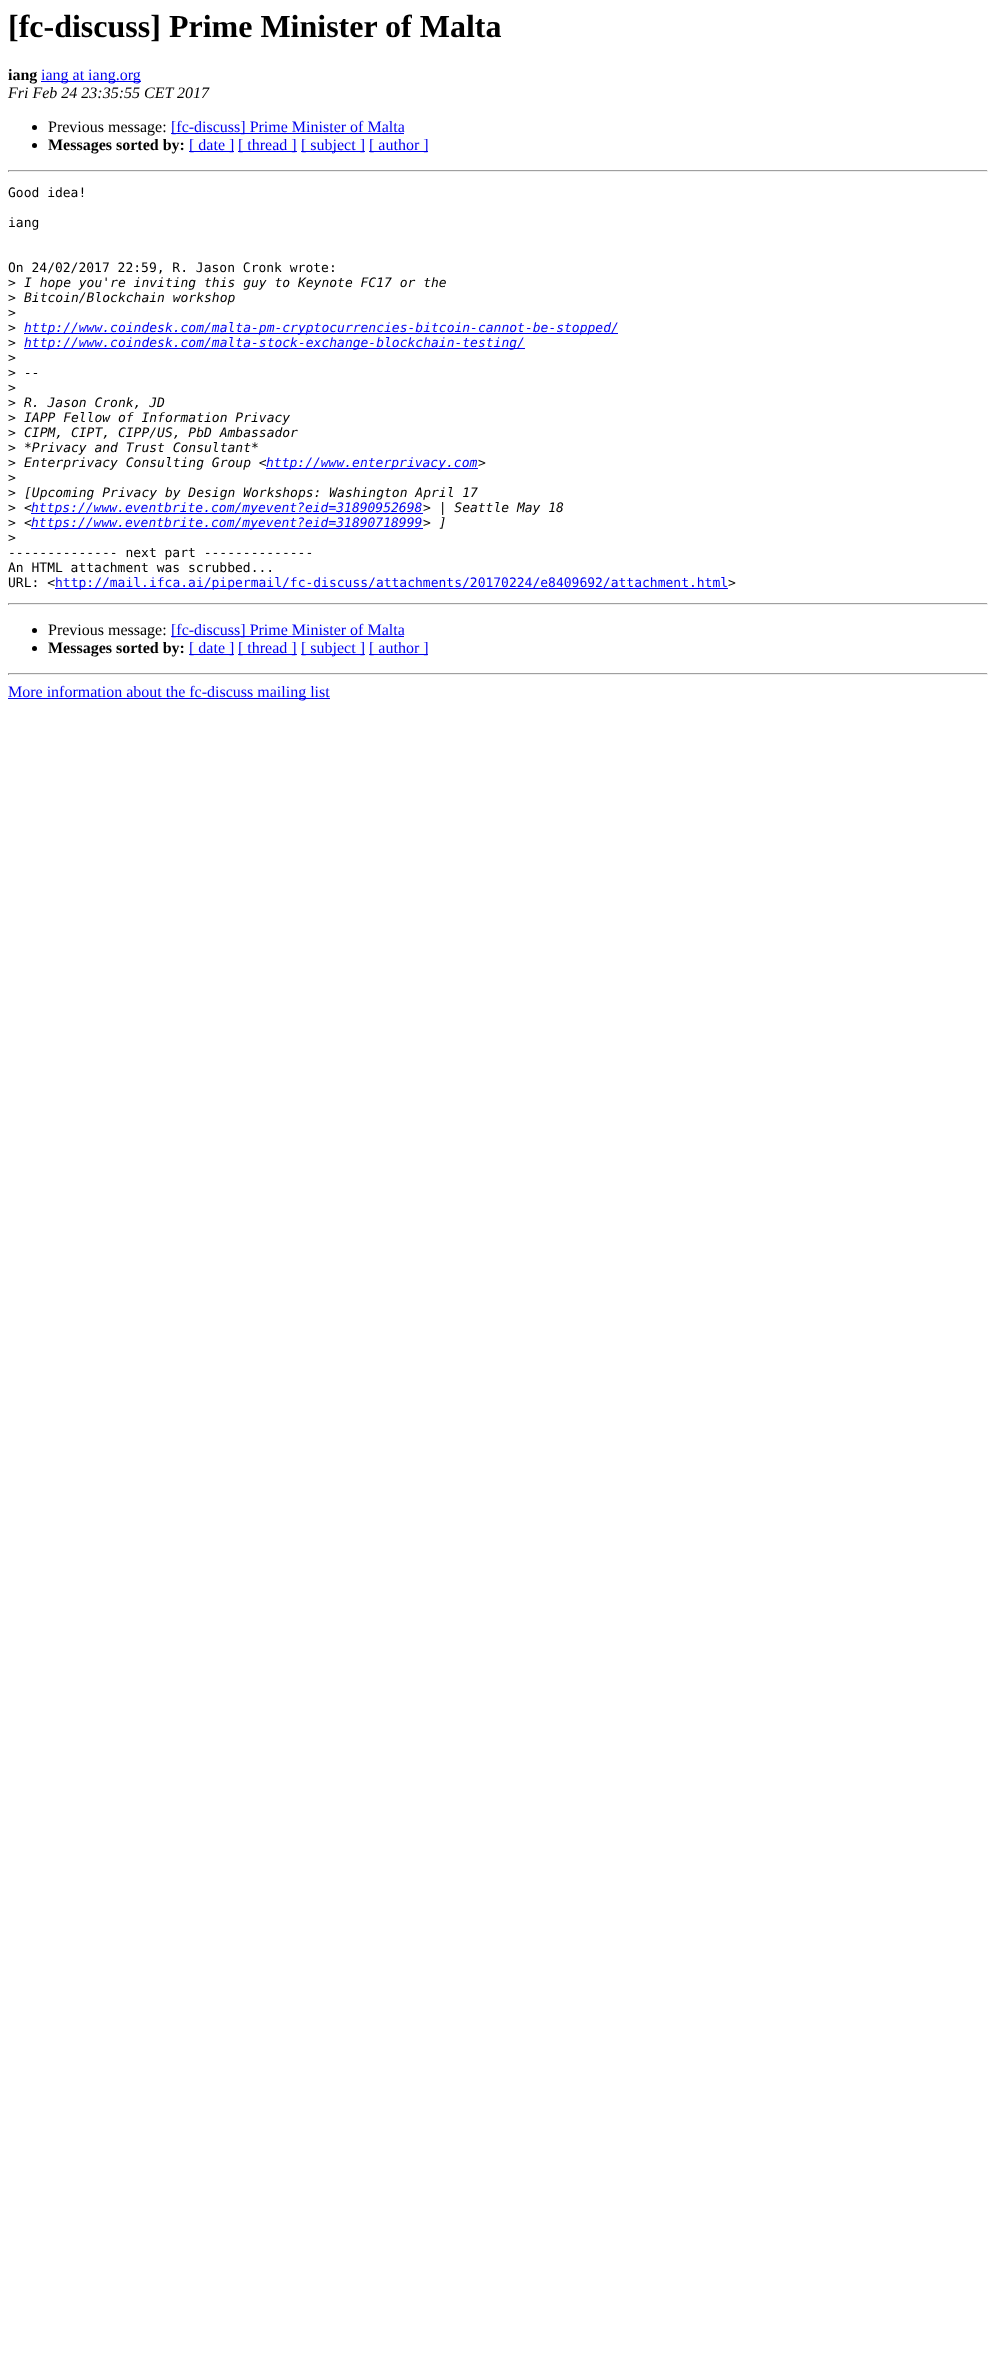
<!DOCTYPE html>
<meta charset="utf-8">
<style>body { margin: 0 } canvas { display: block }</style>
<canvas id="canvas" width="996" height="2355"></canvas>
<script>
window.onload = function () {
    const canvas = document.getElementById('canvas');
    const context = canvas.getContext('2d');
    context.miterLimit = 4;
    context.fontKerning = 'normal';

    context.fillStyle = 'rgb(255, 255, 255)';
    context.fillRect(0, 0, 996, 2355);
    context.fillStyle = 'rgb(0, 0, 238)';
    context.fillRect(41, 81, 100, 1);
    context.fillStyle = 'rgb(0, 0, 0)';
    context.beginPath();
    context.arc(34.5, 127.5, 2.5, 0, 2 * Math.PI);
    context.fill();
    context.fillStyle = 'rgb(0, 0, 238)';
    context.fillRect(171, 133, 233, 1);
    context.fillStyle = 'rgb(0, 0, 0)';
    context.beginPath();
    context.arc(34.5, 145.5, 2.5, 0, 2 * Math.PI);
    context.fill();
    context.fillStyle = 'rgb(0, 0, 238)';
    context.fillRect(189, 151, 45, 1);
    context.fillRect(238, 151, 59, 1);
    context.fillRect(301, 151, 64, 1);
    context.fillRect(369, 151, 59, 1);
    context.fillStyle = 'rgb(159, 159, 159)';
    context.fillRect(8, 170, 980, 1);
    context.fillStyle = 'rgb(238, 238, 238)';
    context.fillRect(987, 170, 1, 2);
    context.fillRect(8, 171, 980, 1);
    context.fillStyle = 'rgb(159, 159, 159)';
    context.fillRect(8, 170, 1, 2);
    context.fillStyle = 'rgb(0, 0, 238)';
    context.fillRect(24, 333, 594, 1);
    context.fillRect(24, 348, 501, 1);
    context.fillRect(266, 468, 212, 1);
    context.fillRect(31, 513, 392, 1);
    context.fillRect(31, 528, 392, 1);
    context.fillRect(55, 588, 673, 1);
    context.fillStyle = 'rgb(159, 159, 159)';
    context.fillRect(8, 603, 980, 1);
    context.fillStyle = 'rgb(238, 238, 238)';
    context.fillRect(987, 603, 1, 2);
    context.fillRect(8, 604, 980, 1);
    context.fillStyle = 'rgb(159, 159, 159)';
    context.fillRect(8, 603, 1, 2);
    context.fillStyle = 'rgb(0, 0, 0)';
    context.beginPath();
    context.arc(34.5, 630.5, 2.5, 0, 2 * Math.PI);
    context.fill();
    context.fillStyle = 'rgb(0, 0, 238)';
    context.fillRect(171, 636, 233, 1);
    context.fillStyle = 'rgb(0, 0, 0)';
    context.beginPath();
    context.arc(34.5, 648.5, 2.5, 0, 2 * Math.PI);
    context.fill();
    context.fillStyle = 'rgb(0, 0, 238)';
    context.fillRect(189, 654, 45, 1);
    context.fillRect(238, 654, 59, 1);
    context.fillRect(301, 654, 64, 1);
    context.fillRect(369, 654, 59, 1);
    context.fillStyle = 'rgb(159, 159, 159)';
    context.fillRect(8, 673, 980, 1);
    context.fillStyle = 'rgb(238, 238, 238)';
    context.fillRect(987, 673, 1, 2);
    context.fillRect(8, 674, 980, 1);
    context.fillStyle = 'rgb(159, 159, 159)';
    context.fillRect(8, 673, 1, 2);
    context.fillStyle = 'rgb(0, 0, 238)';
    context.fillRect(8, 698, 322, 1);
    context.font = 'bold 32px Liberation Serif';
    context.fillStyle = 'rgb(0, 0, 0)';
    context.fillText('[fc-discuss] Prime Minister of Malta', 8, 37);
    context.font = 'bold 16px Liberation Serif';
    context.fillText('iang', 8, 80);
    context.font = '16px Liberation Serif';
    context.fillStyle = 'rgb(0, 0, 238)';
    context.fillText('iang at iang.org', 41, 80);
    context.font = 'italic 16px Liberation Serif';
    context.fillStyle = 'rgb(0, 0, 0)';
    context.fillText('Fri Feb 24 23:35:55 CET 2017', 8, 98);
    context.font = '16px Liberation Serif';
    context.fillText('Previous message:', 48, 132);
    context.fillStyle = 'rgb(0, 0, 238)';
    context.fillText('[fc-discuss] Prime Minister of Malta', 171, 132);
    context.font = 'bold 16px Liberation Serif';
    context.fillStyle = 'rgb(0, 0, 0)';
    context.fillText('Messages sorted by:', 48, 150);
    context.font = '16px Liberation Serif';
    context.fillStyle = 'rgb(0, 0, 238)';
    context.fillText('[ date ]', 189, 150);
    context.fillText('[ thread ]', 238, 150);
    context.fillText('[ subject ]', 301, 150);
    context.fillText('[ author ]', 369, 150);
    context.font = '13px DejaVu Sans Mono';
    context.fillStyle = 'rgb(0, 0, 0)';
    context.fillText('Good idea!', 8, 197);
    context.fillText('iang', 8, 227);
    context.fillText('On 24/02/2017 22:59, R. Jason Cronk wrote:', 8, 272);
    context.fillText('>', 8, 287);
    context.font = 'italic 13px DejaVu Sans Mono';
    context.fillText('I hope you\'re inviting this guy to Keynote FC17 or the', 24, 287);
    context.font = '13px DejaVu Sans Mono';
    context.fillText('>', 8, 302);
    context.font = 'italic 13px DejaVu Sans Mono';
    context.fillText('Bitcoin/Blockchain workshop', 24, 302);
    context.font = '13px DejaVu Sans Mono';
    context.fillText('>', 8, 317);
    context.fillText('>', 8, 332);
    context.font = 'italic 13px DejaVu Sans Mono';
    context.fillStyle = 'rgb(0, 0, 238)';
    context.fillText('http://www.coindesk.com/malta-pm-cryptocurrencies-bitcoin-cannot-be-stopped/', 24, 332);
    context.font = '13px DejaVu Sans Mono';
    context.fillStyle = 'rgb(0, 0, 0)';
    context.fillText('>', 8, 347);
    context.font = 'italic 13px DejaVu Sans Mono';
    context.fillStyle = 'rgb(0, 0, 238)';
    context.fillText('http://www.coindesk.com/malta-stock-exchange-blockchain-testing/', 24, 347);
    context.font = '13px DejaVu Sans Mono';
    context.fillStyle = 'rgb(0, 0, 0)';
    context.fillText('>', 8, 362);
    context.fillText('>', 8, 377);
    context.font = 'italic 13px DejaVu Sans Mono';
    context.fillText('--', 24, 377);
    context.font = '13px DejaVu Sans Mono';
    context.fillText('>', 8, 392);
    context.fillText('>', 8, 407);
    context.font = 'italic 13px DejaVu Sans Mono';
    context.fillText('R. Jason Cronk, JD', 24, 407);
    context.font = '13px DejaVu Sans Mono';
    context.fillText('>', 8, 422);
    context.font = 'italic 13px DejaVu Sans Mono';
    context.fillText('IAPP Fellow of Information Privacy', 24, 422);
    context.font = '13px DejaVu Sans Mono';
    context.fillText('>', 8, 437);
    context.font = 'italic 13px DejaVu Sans Mono';
    context.fillText('CIPM, CIPT, CIPP/US, PbD Ambassador', 24, 437);
    context.font = '13px DejaVu Sans Mono';
    context.fillText('>', 8, 452);
    context.font = 'italic 13px DejaVu Sans Mono';
    context.fillText('*Privacy and Trust Consultant*', 24, 452);
    context.font = '13px DejaVu Sans Mono';
    context.fillText('>', 8, 467);
    context.font = 'italic 13px DejaVu Sans Mono';
    context.fillText('Enterprivacy Consulting Group <', 24, 467);
    context.fillStyle = 'rgb(0, 0, 238)';
    context.fillText('http://www.enterprivacy.com', 266, 467);
    context.fillStyle = 'rgb(0, 0, 0)';
    context.fillText('>', 478, 467);
    context.font = '13px DejaVu Sans Mono';
    context.fillText('>', 8, 482);
    context.fillText('>', 8, 497);
    context.font = 'italic 13px DejaVu Sans Mono';
    context.fillText('[Upcoming Privacy by Design Workshops: Washington April 17', 24, 497);
    context.font = '13px DejaVu Sans Mono';
    context.fillText('>', 8, 512);
    context.font = 'italic 13px DejaVu Sans Mono';
    context.fillText('<', 24, 512);
    context.fillStyle = 'rgb(0, 0, 238)';
    context.fillText('https://www.eventbrite.com/myevent?eid=31890952698', 31, 512);
    context.fillStyle = 'rgb(0, 0, 0)';
    context.fillText('> | Seattle May 18', 423, 512);
    context.font = '13px DejaVu Sans Mono';
    context.fillText('>', 8, 527);
    context.font = 'italic 13px DejaVu Sans Mono';
    context.fillText('<', 24, 527);
    context.fillStyle = 'rgb(0, 0, 238)';
    context.fillText('https://www.eventbrite.com/myevent?eid=31890718999', 31, 527);
    context.fillStyle = 'rgb(0, 0, 0)';
    context.fillText('> ]', 423, 527);
    context.font = '13px DejaVu Sans Mono';
    context.fillText('>', 8, 542);
    context.fillText('-------------- next part --------------', 8, 557);
    context.fillText('An HTML attachment was scrubbed...', 8, 572);
    context.fillText('URL: <', 8, 587);
    context.fillStyle = 'rgb(0, 0, 238)';
    context.fillText('http://mail.ifca.ai/pipermail/fc-discuss/attachments/20170224/e8409692/attachment.html', 55, 587);
    context.fillStyle = 'rgb(0, 0, 0)';
    context.fillText('>', 728, 587);
    context.font = '16px Liberation Serif';
    context.fillText('Previous message:', 48, 635);
    context.fillStyle = 'rgb(0, 0, 238)';
    context.fillText('[fc-discuss] Prime Minister of Malta', 171, 635);
    context.font = 'bold 16px Liberation Serif';
    context.fillStyle = 'rgb(0, 0, 0)';
    context.fillText('Messages sorted by:', 48, 653);
    context.font = '16px Liberation Serif';
    context.fillStyle = 'rgb(0, 0, 238)';
    context.fillText('[ date ]', 189, 653);
    context.fillText('[ thread ]', 238, 653);
    context.fillText('[ subject ]', 301, 653);
    context.fillText('[ author ]', 369, 653);
    context.fillText('More information about the fc-discuss mailing list', 8, 697);
};
</script>
